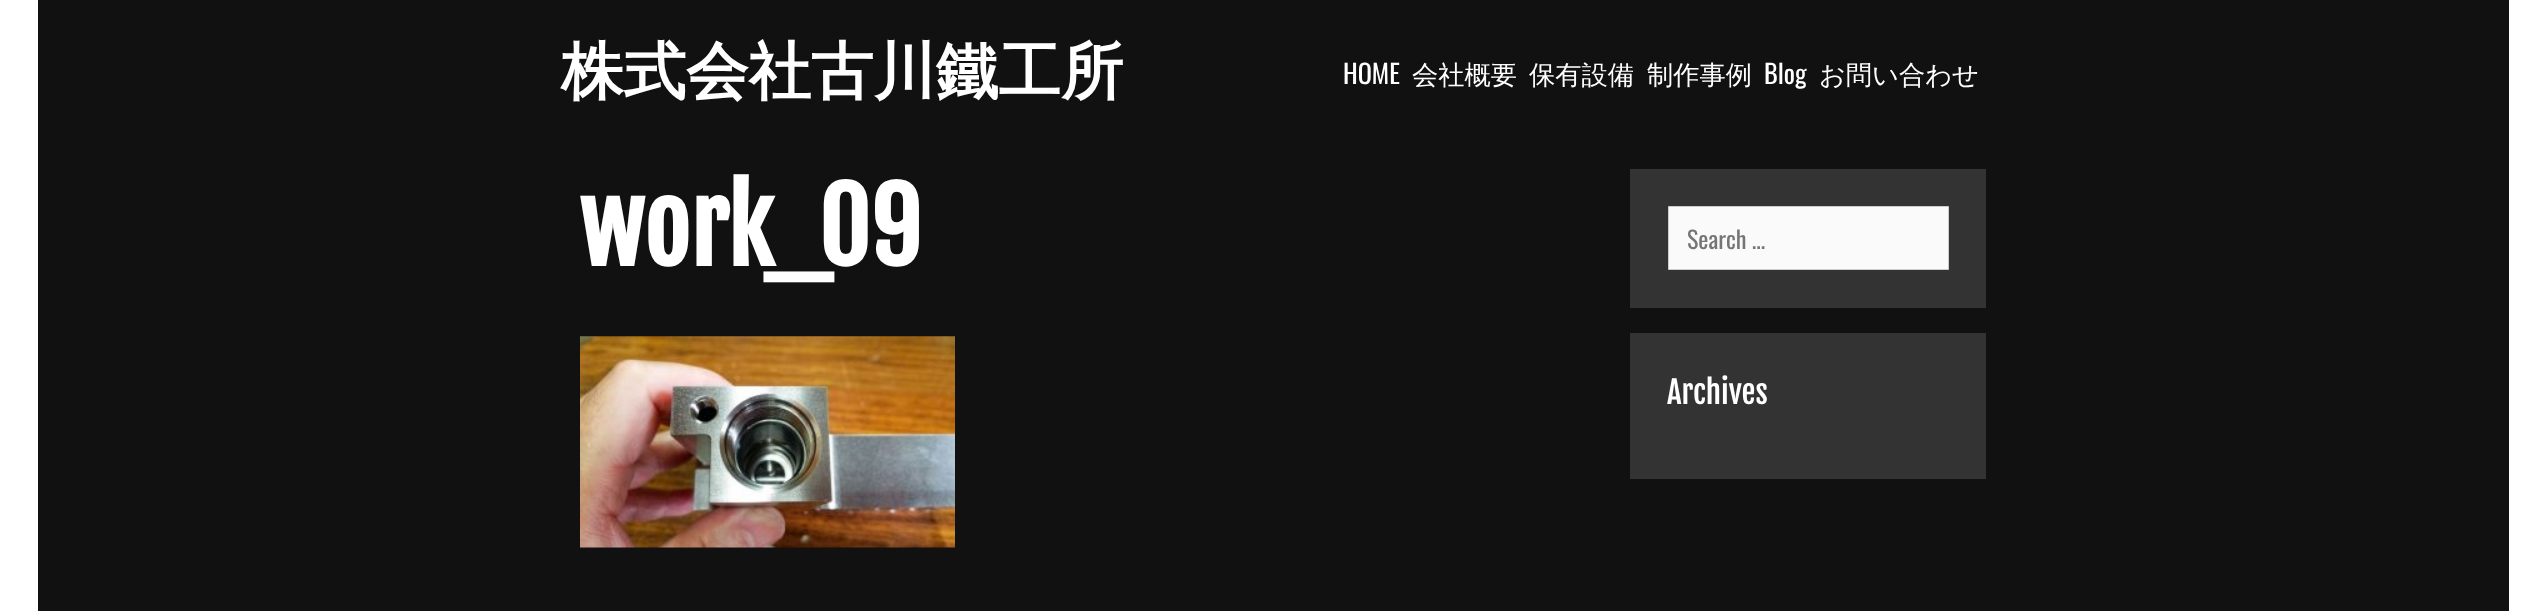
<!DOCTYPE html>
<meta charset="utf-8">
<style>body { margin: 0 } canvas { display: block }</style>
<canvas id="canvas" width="2546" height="611"></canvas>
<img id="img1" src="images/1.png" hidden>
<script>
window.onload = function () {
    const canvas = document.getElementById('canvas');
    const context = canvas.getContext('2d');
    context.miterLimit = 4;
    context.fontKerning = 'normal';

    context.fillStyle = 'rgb(255, 255, 255)';
    context.fillRect(0, 0, 2546, 611);
    context.fillStyle = 'rgb(17, 17, 17)';
    context.fillRect(38, 0, 2471, 611);
    context.drawImage(document.getElementById('img1'), 580, 336, 375, 212);
    context.fillStyle = 'rgb(51, 51, 51)';
    context.fillRect(1630, 169, 356, 139);
    context.fillStyle = 'rgb(250, 250, 250)';
    context.beginPath();
    context.rect(1668.5, 206.5, 280, 63);
    context.fill();
    context.strokeStyle = 'rgb(204, 204, 204)';
    context.stroke();
    context.fillStyle = 'rgb(51, 51, 51)';
    context.fillRect(1630, 333, 356, 146);
    context.font = 'bold 62.5px WenQuanYi Zen Hei';
    context.fillStyle = 'rgb(255, 255, 255)';
    context.fillText('株式会社古川鐵工所', 561, 93);
    context.font = '26.25px Oswald';
    context.fillText('HOME', 1343, 84);
    context.font = '500 26.25px WenQuanYi Zen Hei';
    context.fillText('会社概要', 1412, 84);
    context.fillText('保有設備', 1529, 84);
    context.fillText('制作事例', 1647, 84);
    context.font = '26.25px Oswald';
    context.fillText('Blog', 1764, 84);
    context.font = '500 26.25px WenQuanYi Zen Hei';
    context.fillText('お問い合わせ', 1819, 84);
    context.font = 'bold 100px Fjalla One';
    context.fillText('work_09', 579, 266);
    context.save();
    context.beginPath();
    context.rect(1688, 220, 220, 35);
    context.clip();
    context.font = '24px Oswald';
    context.fillStyle = 'rgb(117, 117, 117)';
    context.fillText('Search …', 1687, 249);
    context.restore();
    context.font = '31px Fjalla One';
    context.fillText('Archives', 1667, 404);
};
</script>
